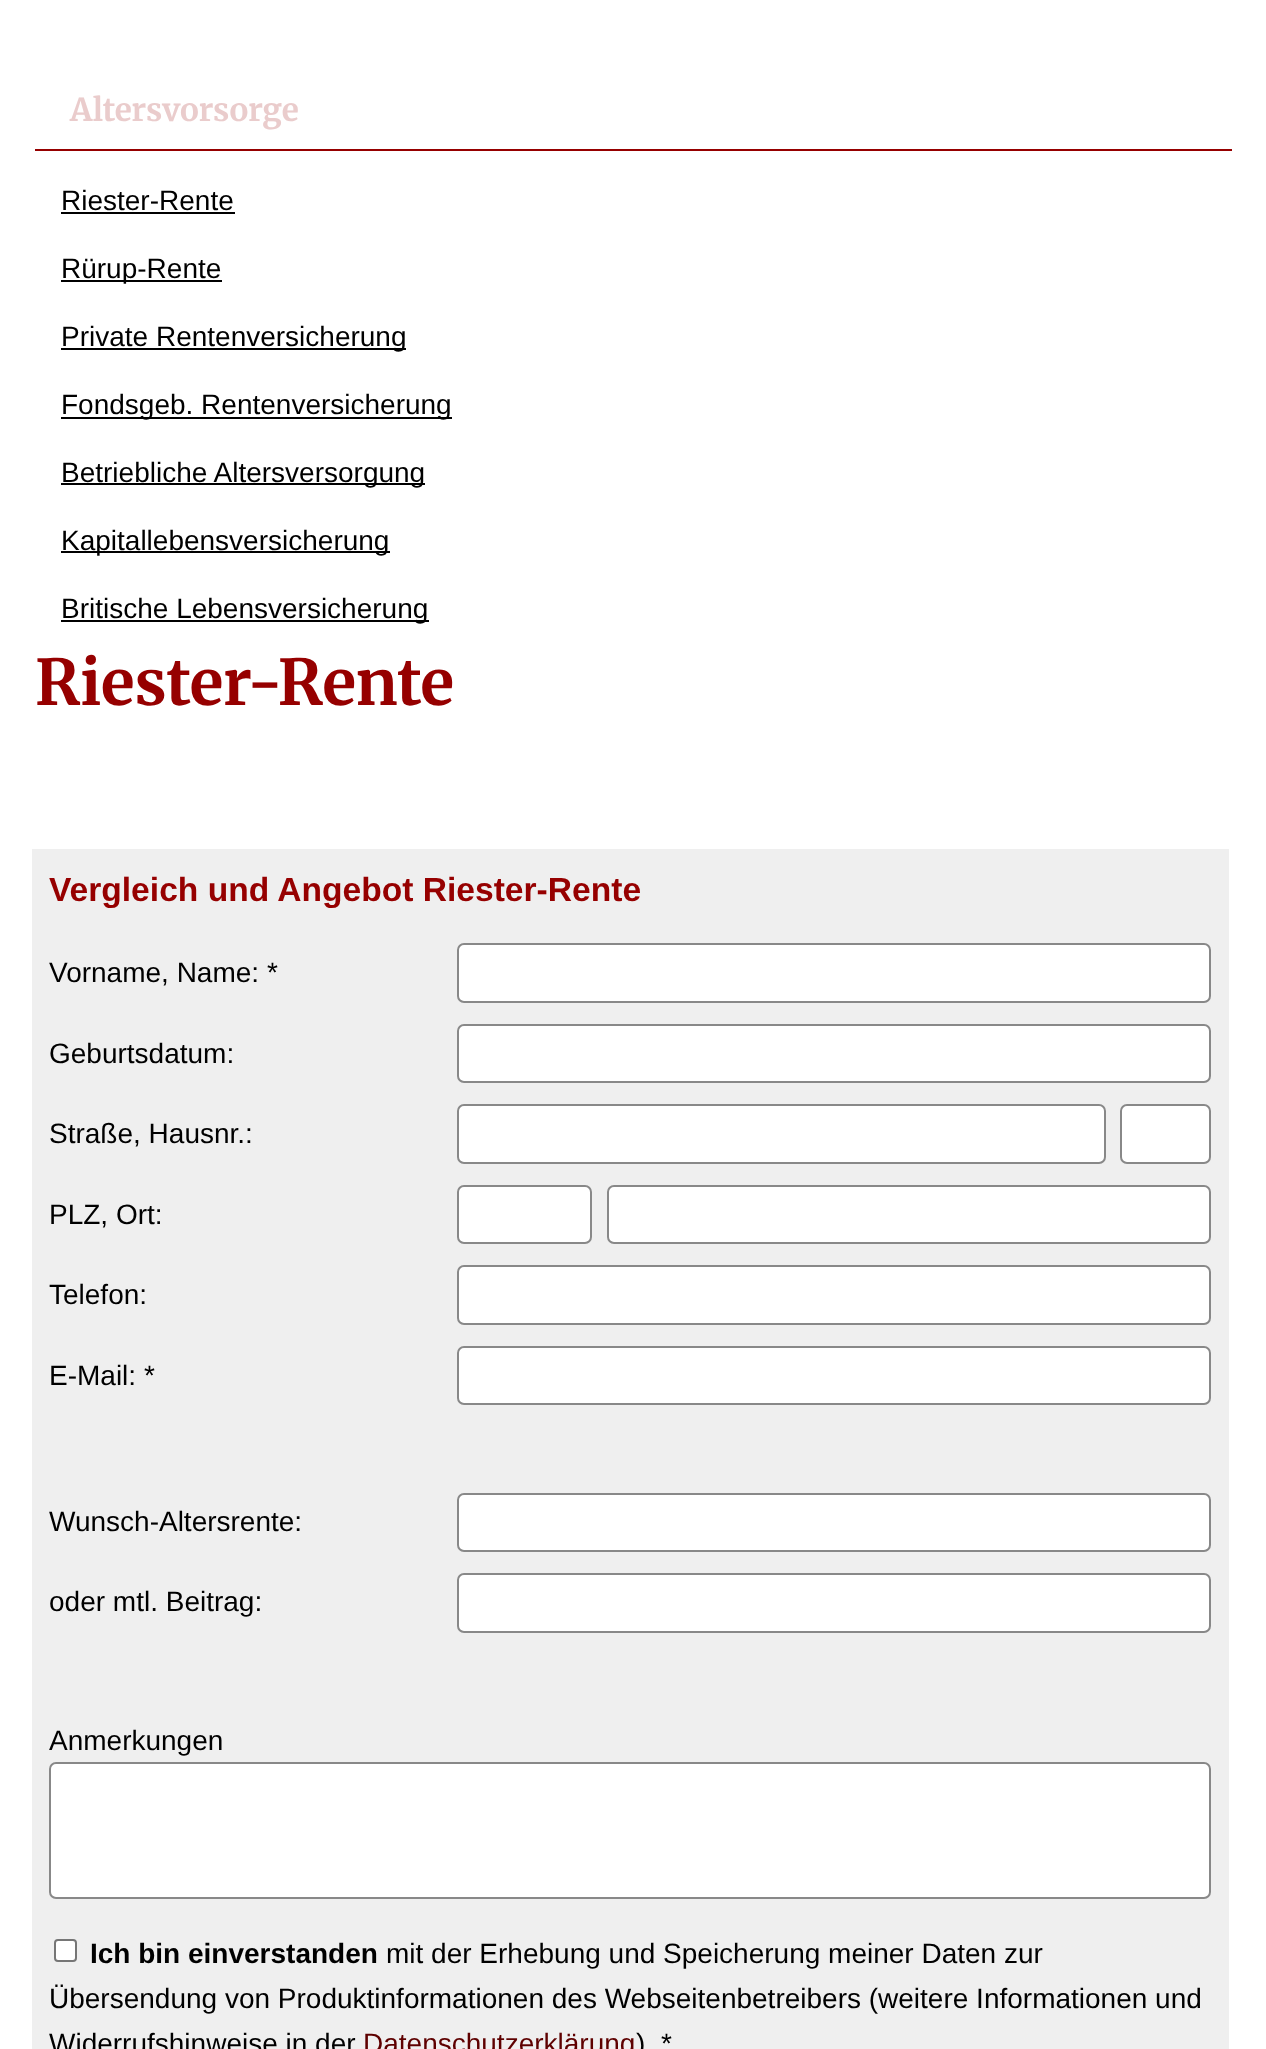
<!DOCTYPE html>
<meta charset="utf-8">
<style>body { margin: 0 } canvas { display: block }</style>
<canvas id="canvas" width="1266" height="2049"></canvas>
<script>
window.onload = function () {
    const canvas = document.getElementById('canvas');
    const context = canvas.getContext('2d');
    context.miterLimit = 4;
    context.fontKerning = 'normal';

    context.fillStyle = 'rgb(255, 255, 255)';
    context.fillRect(0, 0, 1266, 2049);
    context.fillStyle = 'rgb(150, 0, 0)';
    context.fillRect(35, 149, 1197, 2);
    context.fillStyle = 'rgb(0, 0, 0)';
    context.fillRect(61, 212, 174, 2);
    context.fillRect(61, 280, 161, 2);
    context.fillRect(61, 348, 345, 2);
    context.fillRect(61, 417, 391, 2);
    context.fillRect(61, 483, 364, 2);
    context.fillRect(61, 551, 329, 2);
    context.fillRect(61, 620, 368, 2);
    context.fillStyle = 'rgb(239, 239, 239)';
    context.fillRect(32, 849, 1197, 1200);
    context.fillStyle = 'rgb(255, 255, 255)';
    context.beginPath();
    context.roundRect(458, 944, 752, 58, 6);
    context.fill();
    context.strokeStyle = 'rgb(136, 136, 136)';
    context.lineWidth = 2;
    context.stroke();
    context.beginPath();
    context.roundRect(458, 1025, 752, 57, 6);
    context.fill();
    context.stroke();
    context.beginPath();
    context.roundRect(458, 1105, 647, 58, 6);
    context.fill();
    context.stroke();
    context.beginPath();
    context.roundRect(1121, 1105, 89, 58, 6);
    context.fill();
    context.stroke();
    context.beginPath();
    context.roundRect(458, 1186, 133, 57, 6);
    context.fill();
    context.stroke();
    context.beginPath();
    context.roundRect(608, 1186, 602, 57, 6);
    context.fill();
    context.stroke();
    context.beginPath();
    context.roundRect(458, 1266, 752, 58, 6);
    context.fill();
    context.stroke();
    context.beginPath();
    context.roundRect(458, 1347, 752, 57, 6);
    context.fill();
    context.stroke();
    context.beginPath();
    context.roundRect(458, 1494, 752, 57, 6);
    context.fill();
    context.stroke();
    context.beginPath();
    context.roundRect(458, 1574, 752, 58, 6);
    context.fill();
    context.stroke();
    context.beginPath();
    context.roundRect(50, 1763, 1160, 135, 6);
    context.fill();
    context.stroke();
    context.beginPath();
    context.roundRect(55, 1940, 21, 21, 3);
    context.fill();
    context.strokeStyle = 'rgb(118, 118, 118)';
    context.stroke();
    context.font = 'bold 31.5px Merriweather';
    context.fillStyle = 'rgb(234, 204, 204)';
    context.fillText('Altersvorsorge', 70, 121);
    context.font = '28px Liberation Sans';
    context.fillStyle = 'rgb(0, 0, 0)';
    context.fillText('Riester-Rente', 61, 210);
    context.fillText('Rürup-Rente', 61, 278);
    context.fillText('Private Rentenversicherung', 61, 346);
    context.fillText('Fondsgeb. Rentenversicherung', 61, 414);
    context.fillText('Betriebliche Altersversorgung', 61, 482);
    context.fillText('Kapitallebensversicherung', 61, 550);
    context.fillText('Britische Lebensversicherung', 61, 618);
    context.font = 'bold 63px "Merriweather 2"';
    context.fillStyle = 'rgb(150, 0, 0)';
    context.fillText('Riester-Rente', 35, 705);
    context.font = 'bold 33.6px Liberation Sans';
    context.fillText('Vergleich und Angebot Riester-Rente', 49, 901);
    context.font = '28px Liberation Sans';
    context.fillStyle = 'rgb(0, 0, 0)';
    context.fillText('Vorname, Name: *', 49, 982);
    context.fillText('Geburtsdatum:', 49, 1063);
    context.fillText('Straße, Hausnr.:', 49, 1143);
    context.fillText('PLZ, Ort:', 49, 1224);
    context.fillText('Telefon:', 49, 1304);
    context.fillText('E-Mail: *', 49, 1385);
    context.fillText('Wunsch-Altersrente:', 49, 1531);
    context.fillText('oder mtl. Beitrag:', 49, 1611);
    context.fillText('Anmerkungen', 49, 1750);
    context.font = 'bold 28px Liberation Sans';
    context.fillText('Ich bin einverstanden', 90, 1963);
    context.font = '28px Liberation Sans';
    context.fillText('mit der Erhebung und Speicherung meiner Daten zur', 386, 1963);
    context.fillText('Übersendung von Produktinformationen des Webseitenbetreibers (weitere Informationen und', 49, 2008);
    context.fillText('Widerrufshinweise in der', 49, 2053);
    context.fillStyle = 'rgb(94, 0, 0)';
    context.fillText('Datenschutzerklärung', 363, 2053);
    context.fillStyle = 'rgb(0, 0, 0)';
    context.fillText('). *', 636, 2053);
};
</script>
